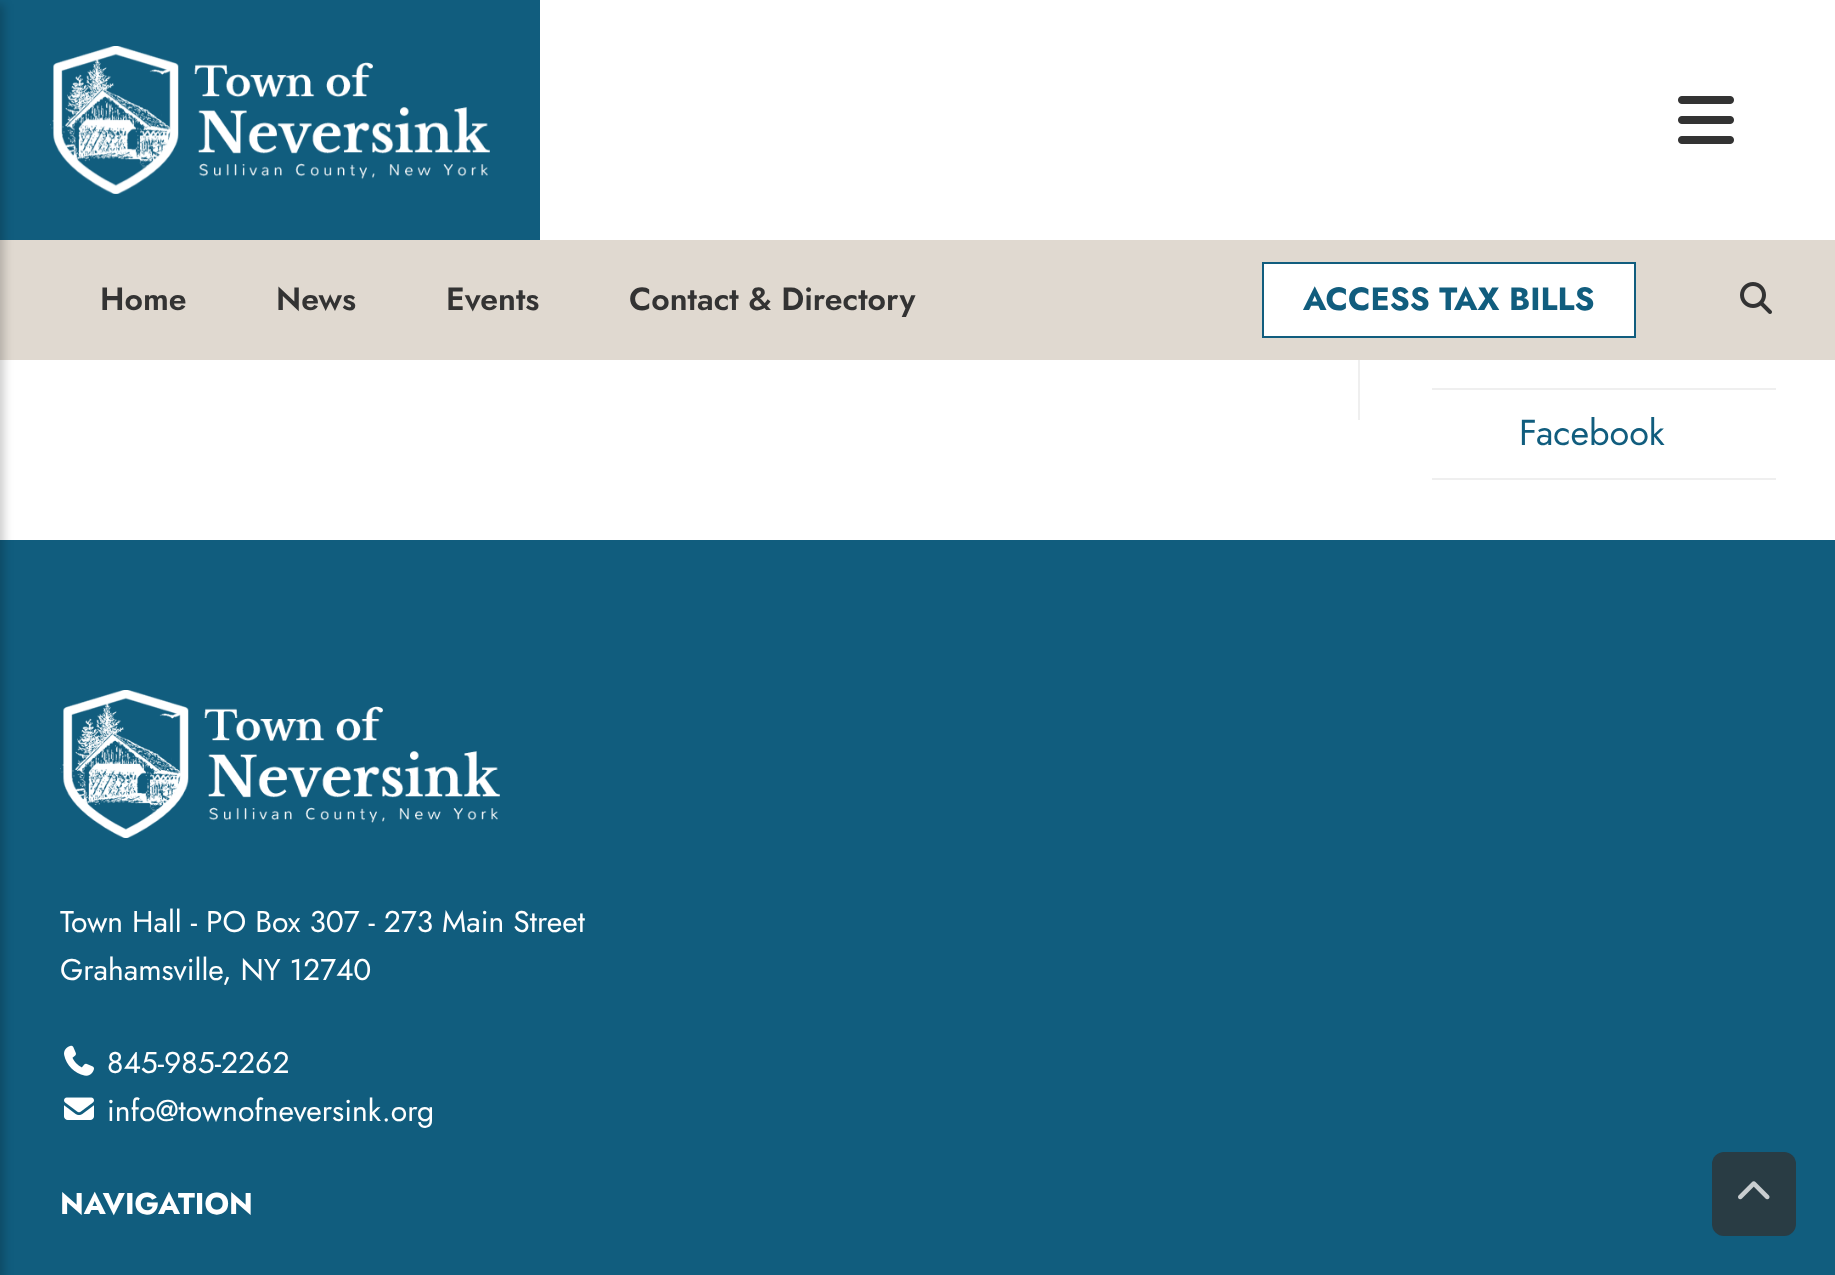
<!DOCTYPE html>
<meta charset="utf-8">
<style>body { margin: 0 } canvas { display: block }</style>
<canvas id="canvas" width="1835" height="1275"></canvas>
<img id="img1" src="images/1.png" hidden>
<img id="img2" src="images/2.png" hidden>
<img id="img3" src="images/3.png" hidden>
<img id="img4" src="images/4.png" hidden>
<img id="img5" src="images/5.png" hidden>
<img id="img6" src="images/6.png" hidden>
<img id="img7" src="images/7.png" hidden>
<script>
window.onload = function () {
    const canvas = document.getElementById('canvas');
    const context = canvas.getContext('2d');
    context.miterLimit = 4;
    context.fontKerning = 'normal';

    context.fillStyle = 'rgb(255, 255, 255)';
    context.fillRect(0, 0, 1835, 1275);
    context.fillStyle = 'rgb(17, 93, 126)';
    context.fillRect(0, 0, 540, 240);
    context.drawImage(document.getElementById('img1'), 50, 46, 440, 148);
    context.fillStyle = 'rgb(224, 217, 208)';
    context.fillRect(0, 240, 1835, 120);
    context.fillStyle = 'rgb(17, 93, 126)';
    context.fillRect(0, 540, 1835, 735);
    context.fillStyle = 'rgba(0, 0, 0, 0.2)';
    context.filter = 'blur(5px)';
    context.beginPath();
    context.rect(-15, 4, 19, 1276);
    context.fill();
    context.filter = 'none';
    context.drawImage(document.getElementById('img2'), 1678, 96, 56, 48);
    context.fillStyle = 'rgb(255, 255, 255)';
    context.beginPath();
    context.rect(1263, 263, 372, 74);
    context.fill();
    context.strokeStyle = 'rgb(17, 93, 126)';
    context.lineWidth = 2;
    context.stroke();
    context.drawImage(document.getElementById('img3'), 1740, 282, 32, 32);
    context.fillStyle = 'rgb(239, 239, 239)';
    context.fillRect(1358, 360, 2, 60);
    context.fillRect(1432, 388, 344, 2);
    context.fillRect(1432, 478, 344, 2);
    context.drawImage(document.getElementById('img4'), 60, 690, 440, 148);
    context.drawImage(document.getElementById('img5'), 64, 1045, 30, 31);
    context.drawImage(document.getElementById('img6'), 64, 1097, 30, 23);
    context.fillStyle = 'rgb(41, 60, 68)';
    context.beginPath();
    context.roundRect(1712, 1152, 84, 84, 12);
    context.fill();
    context.drawImage(document.getElementById('img7'), 1738, 1181, 32, 19);
    context.font = '600 32px Jost';
    context.fillStyle = 'rgb(51, 51, 51)';
    context.fillText('Home', 100, 310);
    context.fillText('News', 276, 310);
    context.fillText('Events', 446, 310);
    context.fillText('Contact & Directory', 629, 310);
    context.font = 'bold 32px Jost';
    context.fillStyle = 'rgb(17, 93, 126)';
    context.fillText('ACCESS TAX BILLS', 1303, 310);
    context.font = '36px Jost';
    context.fillText('Facebook', 1519, 445);
    context.font = '30px Jost';
    context.fillStyle = 'rgb(255, 255, 255)';
    context.fillText('Town Hall - PO Box 307 - 273 Main Street', 60, 932);
    context.fillText('Grahamsville, NY 12740', 60, 980);
    context.fillText('845-985-2262', 107, 1073);
    context.fillText('info@townofneversink.org', 107, 1121);
    context.font = 'bold 30px Jost';
    context.fillText('NAVIGATION', 60, 1214);
};
</script>
